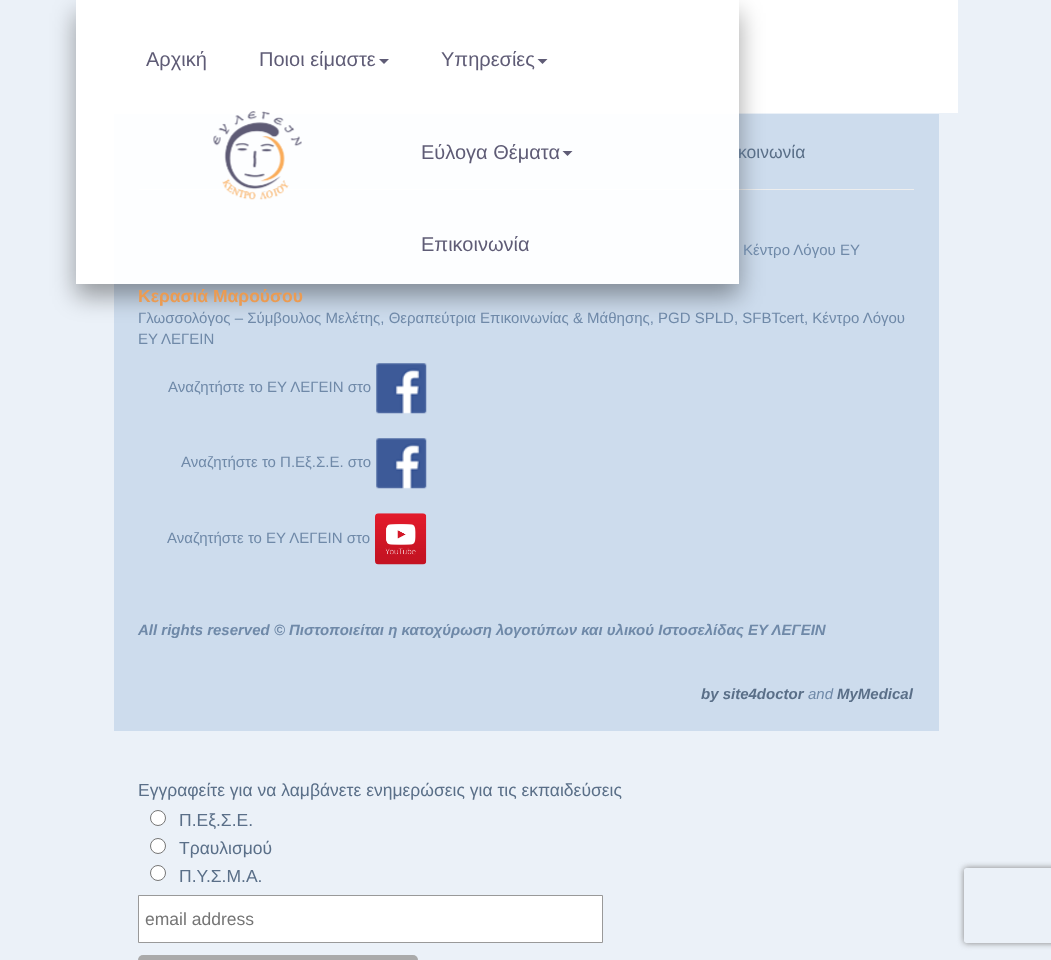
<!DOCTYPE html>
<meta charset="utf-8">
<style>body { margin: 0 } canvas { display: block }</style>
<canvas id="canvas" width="1051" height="960"></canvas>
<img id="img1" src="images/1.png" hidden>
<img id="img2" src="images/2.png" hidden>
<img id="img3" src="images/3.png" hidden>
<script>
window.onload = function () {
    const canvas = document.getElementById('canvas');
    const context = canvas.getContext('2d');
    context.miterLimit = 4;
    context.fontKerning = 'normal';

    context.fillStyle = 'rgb(235, 241, 248)';
    context.fillRect(0, 0, 1051, 960);
    context.fillStyle = 'rgb(255, 255, 255)';
    context.fillRect(95, 0, 863, 113);
    context.fillStyle = 'rgb(205, 220, 237)';
    context.fillRect(114, 114, 825, 617);
    context.fillStyle = 'rgb(238, 238, 238)';
    context.fillRect(139, 189, 775, 1);
    context.save();
    context.beginPath();
    context.moveTo(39, 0);
    context.lineTo(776, 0);
    context.lineTo(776, 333);
    context.lineTo(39, 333);
    context.closePath();
    context.moveTo(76, 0);
    context.lineTo(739, 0);
    context.lineTo(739, 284);
    context.lineTo(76, 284);
    context.closePath();
    context.clip('evenodd');
    context.fillStyle = 'rgba(0, 0, 0, 0.37)';
    context.filter = 'blur(12px)';
    context.beginPath();
    context.rect(76, 13, 663, 283);
    context.fill();
    context.filter = 'none';
    context.restore();
    context.fillStyle = 'rgba(255, 255, 255, 0.96)';
    context.fillRect(76, 0, 663, 284);
    context.fillStyle = 'rgb(95, 92, 118)';
    context.beginPath();
    context.moveTo(379, 59);
    context.lineTo(389, 59);
    context.lineTo(384, 64);
    context.closePath();
    context.fill();
    context.beginPath();
    context.moveTo(537.5, 59);
    context.lineTo(547.5, 59);
    context.lineTo(542.5, 64);
    context.closePath();
    context.fill();
    context.drawImage(document.getElementById('img1'), 213, 111, 89, 89);
    context.beginPath();
    context.moveTo(562.5, 151);
    context.lineTo(572.5, 151);
    context.lineTo(567.5, 156);
    context.closePath();
    context.fill();
    context.drawImage(document.getElementById('img2'), 376, 363, 51, 51);
    context.drawImage(document.getElementById('img2'), 376, 438, 51, 51);
    context.drawImage(document.getElementById('img3'), 375, 513, 52, 52);
    context.fillStyle = 'rgb(255, 255, 255)';
    context.beginPath();
    context.arc(158, 818, 7.5, 0, 2 * Math.PI);
    context.fill();
    context.strokeStyle = 'rgb(118, 118, 118)';
    context.stroke();
    context.beginPath();
    context.arc(158, 846, 7.5, 0, 2 * Math.PI);
    context.fill();
    context.stroke();
    context.beginPath();
    context.arc(158, 873, 7.5, 0, 2 * Math.PI);
    context.fill();
    context.stroke();
    context.beginPath();
    context.rect(138.5, 895.5, 464, 47);
    context.fill();
    context.strokeStyle = 'rgb(153, 153, 153)';
    context.stroke();
    context.fillStyle = 'rgb(170, 170, 170)';
    context.beginPath();
    context.roundRect(138, 955, 280, 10, 5);
    context.fill();
    context.save();
    context.beginPath();
    context.moveTo(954, 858);
    context.lineTo(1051, 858);
    context.lineTo(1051, 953);
    context.lineTo(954, 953);
    context.closePath();
    context.moveTo(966.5, 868);
    context.lineTo(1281.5, 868);
    context.bezierCurveTo(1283, 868, 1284, 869, 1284, 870.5);
    context.lineTo(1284, 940.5);
    context.bezierCurveTo(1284, 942, 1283, 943, 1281.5, 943);
    context.lineTo(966.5, 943);
    context.bezierCurveTo(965, 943, 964, 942, 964, 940.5);
    context.lineTo(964, 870.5);
    context.bezierCurveTo(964, 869, 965, 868, 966.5, 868);
    context.closePath();
    context.clip('evenodd');
    context.fillStyle = 'rgb(128, 128, 128)';
    context.filter = 'blur(3px)';
    context.beginPath();
    context.roundRect(964, 868, 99, 75, 2.5);
    context.fill();
    context.filter = 'none';
    context.restore();
    context.font = '20px Liberation Sans';
    context.fillStyle = 'rgb(95, 92, 118)';
    context.fillText('Αρχική', 146, 66);
    context.fillText('Ποιοι είμαστε', 259, 66);
    context.fillText('Υπηρεσίες', 441, 66);
    context.fillText('Εύλογα Θέματα', 421, 159);
    context.fillText('Επικοινωνία', 421, 251);
    context.font = '17.5px Liberation Sans';
    context.fillStyle = 'rgb(90, 111, 136)';
    context.fillText('κοινωνία', 738, 158);
    context.font = '15px Liberation Sans';
    context.fillStyle = 'rgb(111, 137, 168)';
    context.fillText('Κέντρο Λόγου ΕΥ', 743, 255);
    context.font = 'bold 17.5px Liberation Sans';
    context.fillStyle = 'rgb(235, 155, 82)';
    context.fillText('Kερασιά Μαρούσου', 138, 302);
    context.font = '15px Liberation Sans';
    context.fillStyle = 'rgb(111, 137, 168)';
    context.fillText('Γλωσσολόγος – Σύμβουλος Μελέτης, Θεραπεύτρια Επικοινωνίας & Μάθησης, PGD SPLD, SFBTcert, Κέντρο Λόγου', 138, 323);
    context.fillText('ΕΥ ΛΕΓΕΙΝ', 138, 344);
    context.fillText('Αναζητήστε το ΕΥ ΛΕΓΕΙΝ στο', 168, 392);
    context.fillText('Αναζητήστε το Π.Εξ.Σ.Ε. στο', 181, 467);
    context.fillText('Αναζητήστε το ΕΥ ΛΕΓΕΙΝ στο', 167, 543);
    context.font = 'italic bold 15px Liberation Sans';
    context.fillText('All rights reserved © Πιστοποιείται η κατοχύρωση λογοτύπων και υλικού Ιστοσελίδας ΕΥ ΛΕΓΕΙΝ', 138, 635);
    context.fillStyle = 'rgb(90, 111, 136)';
    context.fillText('by site4doctor', 701, 699);
    context.font = 'italic 15px Liberation Sans';
    context.fillStyle = 'rgb(111, 137, 168)';
    context.fillText('and', 808, 699);
    context.font = 'italic bold 15px Liberation Sans';
    context.fillStyle = 'rgb(90, 111, 136)';
    context.fillText('MyMedical', 837, 699);
    context.font = '17.5px Liberation Sans';
    context.fillText('Εγγραφείτε για να λαμβάνετε ενημερώσεις για τις εκπαιδεύσεις', 138, 796);
    context.fillText('Π.Εξ.Σ.Ε.', 179, 826);
    context.fillText('Τραυλισμού', 179, 854);
    context.fillText('Π.Υ.Σ.Μ.Α.', 179, 882);
    context.fillStyle = 'rgb(117, 117, 117)';
    context.fillText('email address', 145, 925);
};
</script>
